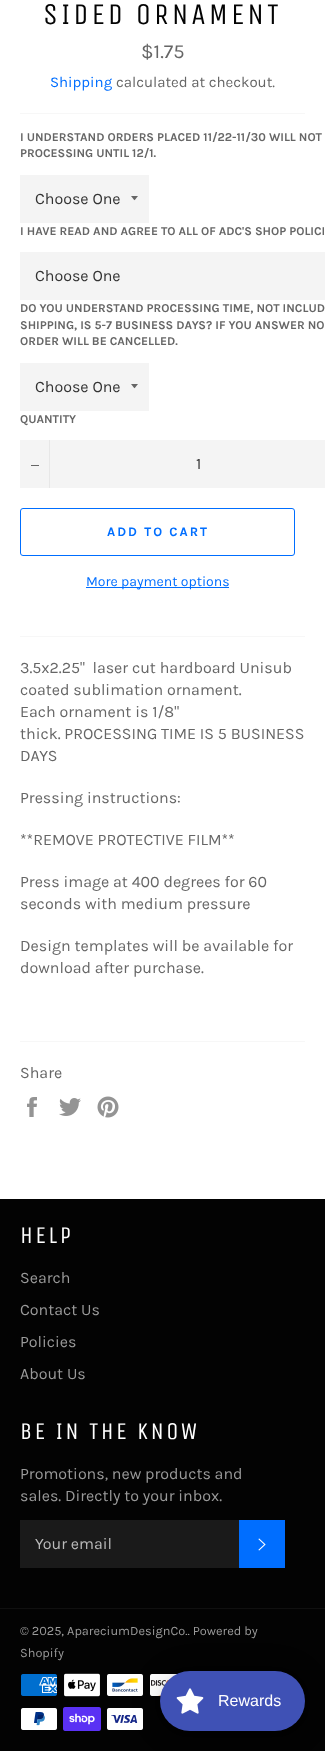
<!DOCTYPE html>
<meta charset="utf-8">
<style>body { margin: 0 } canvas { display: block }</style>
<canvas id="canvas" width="325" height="1751"></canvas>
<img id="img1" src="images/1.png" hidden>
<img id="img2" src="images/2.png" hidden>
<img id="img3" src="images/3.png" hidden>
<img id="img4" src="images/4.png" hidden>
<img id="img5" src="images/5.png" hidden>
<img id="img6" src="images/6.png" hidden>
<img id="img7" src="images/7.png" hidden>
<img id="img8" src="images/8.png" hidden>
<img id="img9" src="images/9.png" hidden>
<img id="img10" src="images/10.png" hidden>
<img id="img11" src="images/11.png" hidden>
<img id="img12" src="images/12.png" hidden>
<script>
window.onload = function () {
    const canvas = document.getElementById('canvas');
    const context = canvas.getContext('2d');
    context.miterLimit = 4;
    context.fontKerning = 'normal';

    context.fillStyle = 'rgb(255, 255, 255)';
    context.fillRect(0, 0, 325, 1751);
    context.fillStyle = 'rgb(247, 247, 247)';
    context.fillRect(20, 113, 285, 1);
    context.fillStyle = 'rgb(244, 244, 244)';
    context.fillRect(20, 175, 129, 48);
    context.fillStyle = 'rgb(102, 102, 102)';
    context.beginPath();
    context.moveTo(131, 196);
    context.bezierCurveTo(135.5, 201.5, 133.5, 201.5, 138, 196);
    context.closePath();
    context.fill();
    context.fillStyle = 'rgb(244, 244, 244)';
    context.fillRect(20, 252, 305, 48);
    context.fillRect(20, 363, 129, 48);
    context.fillStyle = 'rgb(102, 102, 102)';
    context.beginPath();
    context.moveTo(131, 384);
    context.bezierCurveTo(135.5, 389.5, 133.5, 389.5, 138, 384);
    context.closePath();
    context.fill();
    context.fillStyle = 'rgb(244, 244, 244)';
    context.fillRect(20, 440, 305, 48);
    context.fillStyle = 'rgb(231, 231, 231)';
    context.fillRect(49, 440, 1, 48);
    context.fillStyle = 'rgb(102, 102, 102)';
    context.fillRect(31, 465, 8, 1);
    context.beginPath();
    context.roundRect(20.5, 508.5, 274, 47, 2.5);
    context.strokeStyle = 'rgb(0, 110, 255)';
    context.stroke();
    context.fillStyle = 'rgb(0, 110, 255)';
    context.fillRect(86, 587, 143, 1);
    context.fillStyle = 'rgb(247, 247, 247)';
    context.fillRect(20, 636, 285, 1);
    context.fillRect(20, 1041, 285, 1);
    context.drawImage(document.getElementById('img1'), 27, 1097, 10, 20);
    context.drawImage(document.getElementById('img2'), 59, 1098, 22, 18);
    context.drawImage(document.getElementById('img3'), 97, 1096, 22, 22);
    context.fillStyle = 'rgb(3, 3, 3)';
    context.fillRect(0, 1199, 325, 552);
    context.fillStyle = 'rgb(26, 26, 26)';
    context.fillRect(20, 1520, 219, 48);
    context.fillStyle = 'rgb(0, 110, 255)';
    context.fillRect(239, 1520, 46, 48);
    context.drawImage(document.getElementById('img4'), 258, 1538, 8, 13);
    context.fillStyle = 'rgb(16, 16, 16)';
    context.fillRect(0, 1608, 325, 1);
    context.drawImage(document.getElementById('img5'), 21, 1674, 36, 22);
    context.drawImage(document.getElementById('img6'), 64, 1673, 36, 24);
    context.drawImage(document.getElementById('img7'), 107, 1674, 36, 22);
    context.drawImage(document.getElementById('img8'), 150, 1674, 27, 22);
    context.drawImage(document.getElementById('img9'), 21, 1708, 36, 22);
    context.drawImage(document.getElementById('img10'), 63, 1707, 38, 24);
    context.drawImage(document.getElementById('img11'), 107, 1708, 36, 22);
    context.fillStyle = 'rgba(0, 0, 0, 0.15)';
    context.filter = 'blur(15px)';
    context.beginPath();
    context.roundRect(160, 1673, 145, 60, 30);
    context.fill();
    context.filter = 'none';
    context.fillStyle = 'rgba(0, 0, 0, 0.05)';
    context.filter = 'blur(3px)';
    context.beginPath();
    context.roundRect(160, 1672, 145, 60, 30);
    context.fill();
    context.filter = 'none';
    context.fillStyle = 'rgb(63, 81, 181)';
    context.beginPath();
    context.roundRect(160, 1671, 145, 60, 30);
    context.fill();
    context.drawImage(document.getElementById('img12'), 176, 1688, 28, 26);
    context.letterSpacing = '3px';
    context.font = '30px Unica One';
    context.fillStyle = 'rgb(3, 3, 3)';
    context.fillText('SIDED ORNAMENT', 43, 24);
    context.letterSpacing = '0px';
    context.font = '20px Karla';
    context.fillStyle = 'rgb(102, 102, 102)';
    context.fillText('$1.75', 141, 58);
    context.font = '15px Karla';
    context.fillStyle = 'rgb(0, 110, 255)';
    context.fillText('Shipping', 50, 87);
    context.fillStyle = 'rgb(102, 102, 102)';
    context.fillText('calculated at checkout.', 116, 87);
    context.font = 'bold 12px Karla';
    context.fillText('I UNDERSTAND ORDERS PLACED 11/22-11/30 WILL NOT', 20, 141);
    context.fillText('PROCESSING UNTIL 12/1.', 20, 157);
    context.font = '16px Karla';
    context.fillStyle = 'rgb(51, 51, 51)';
    context.fillText('Choose One', 35, 204);
    context.font = 'bold 12px Karla';
    context.fillStyle = 'rgb(102, 102, 102)';
    context.fillText('I HAVE READ AND AGREE TO ALL OF ADC\'S SHOP POLICI', 20, 235);
    context.font = '16px Karla';
    context.fillStyle = 'rgb(51, 51, 51)';
    context.fillText('Choose One', 35, 281);
    context.font = 'bold 12px Karla';
    context.fillStyle = 'rgb(102, 102, 102)';
    context.fillText('DO YOU UNDERSTAND PROCESSING TIME, NOT INCLUD', 20, 312);
    context.fillText('SHIPPING, IS 5-7 BUSINESS DAYS? IF YOU ANSWER NO', 20, 329);
    context.fillText('ORDER WILL BE CANCELLED.', 20, 345);
    context.font = '16px Karla';
    context.fillStyle = 'rgb(51, 51, 51)';
    context.fillText('Choose One', 35, 392);
    context.font = 'bold 12px Karla';
    context.fillStyle = 'rgb(102, 102, 102)';
    context.fillText('QUANTITY', 20, 423);
    context.font = '16px Karla';
    context.fillStyle = 'rgb(51, 51, 51)';
    context.fillText('1', 196, 469);
    context.letterSpacing = '2px';
    context.font = 'bold 13px Karla';
    context.fillStyle = 'rgb(0, 110, 255)';
    context.fillText('ADD TO CART', 107, 536);
    context.letterSpacing = '0px';
    context.font = '14px Karla';
    context.fillText('More payment options', 86, 586);
    context.font = '16px Karla';
    context.fillStyle = 'rgb(102, 102, 102)';
    context.fillText('3.5x2.25"  laser cut hardboard Unisub', 20, 673);
    context.fillText('coated sublimation ornament.', 20, 695);
    context.fillText('Each ornament is 1/8"', 20, 717);
    context.fillText('thick. PROCESSING TIME IS 5 BUSINESS', 20, 739);
    context.fillText('DAYS', 20, 761);
    context.fillText('Pressing instructions:', 20, 803);
    context.fillText('**REMOVE PROTECTIVE FILM**', 20, 845);
    context.fillText('Press image at 400 degrees for 60', 20, 887);
    context.fillText('seconds with medium pressure', 20, 909);
    context.fillText('Design templates will be available for', 20, 951);
    context.fillText('download after purchase.', 20, 973);
    context.fillText('Share', 20, 1078);
    context.letterSpacing = '2.4px';
    context.font = '24px Unica One';
    context.fillStyle = 'rgb(255, 255, 255)';
    context.fillText('HELP', 20, 1243);
    context.letterSpacing = '0px';
    context.font = '16px Karla';
    context.fillStyle = 'rgb(154, 154, 154)';
    context.fillText('Search', 20, 1283);
    context.fillText('Contact Us', 20, 1315);
    context.fillText('Policies', 20, 1347);
    context.fillText('About Us', 20, 1379);
    context.letterSpacing = '2.4px';
    context.font = '24px Unica One';
    context.fillStyle = 'rgb(255, 255, 255)';
    context.fillText('BE IN THE KNOW', 20, 1439);
    context.letterSpacing = '0px';
    context.font = '16px Karla';
    context.fillStyle = 'rgb(154, 154, 154)';
    context.fillText('Promotions, new products and', 20, 1479);
    context.fillText('sales. Directly to your inbox.', 20, 1501);
    context.fillStyle = 'rgb(186, 186, 186)';
    context.fillText('Your email', 35, 1549);
    context.font = '12.75px Karla';
    context.fillStyle = 'rgb(154, 154, 154)';
    context.fillText('© 2025, ApareciumDesignCo.. Powered by', 20, 1635);
    context.fillText('Shopify', 20, 1657);
    context.font = '16px Liberation Sans';
    context.fillStyle = 'rgb(255, 255, 255)';
    context.fillText('Rewards', 218, 1706);
};
</script>
